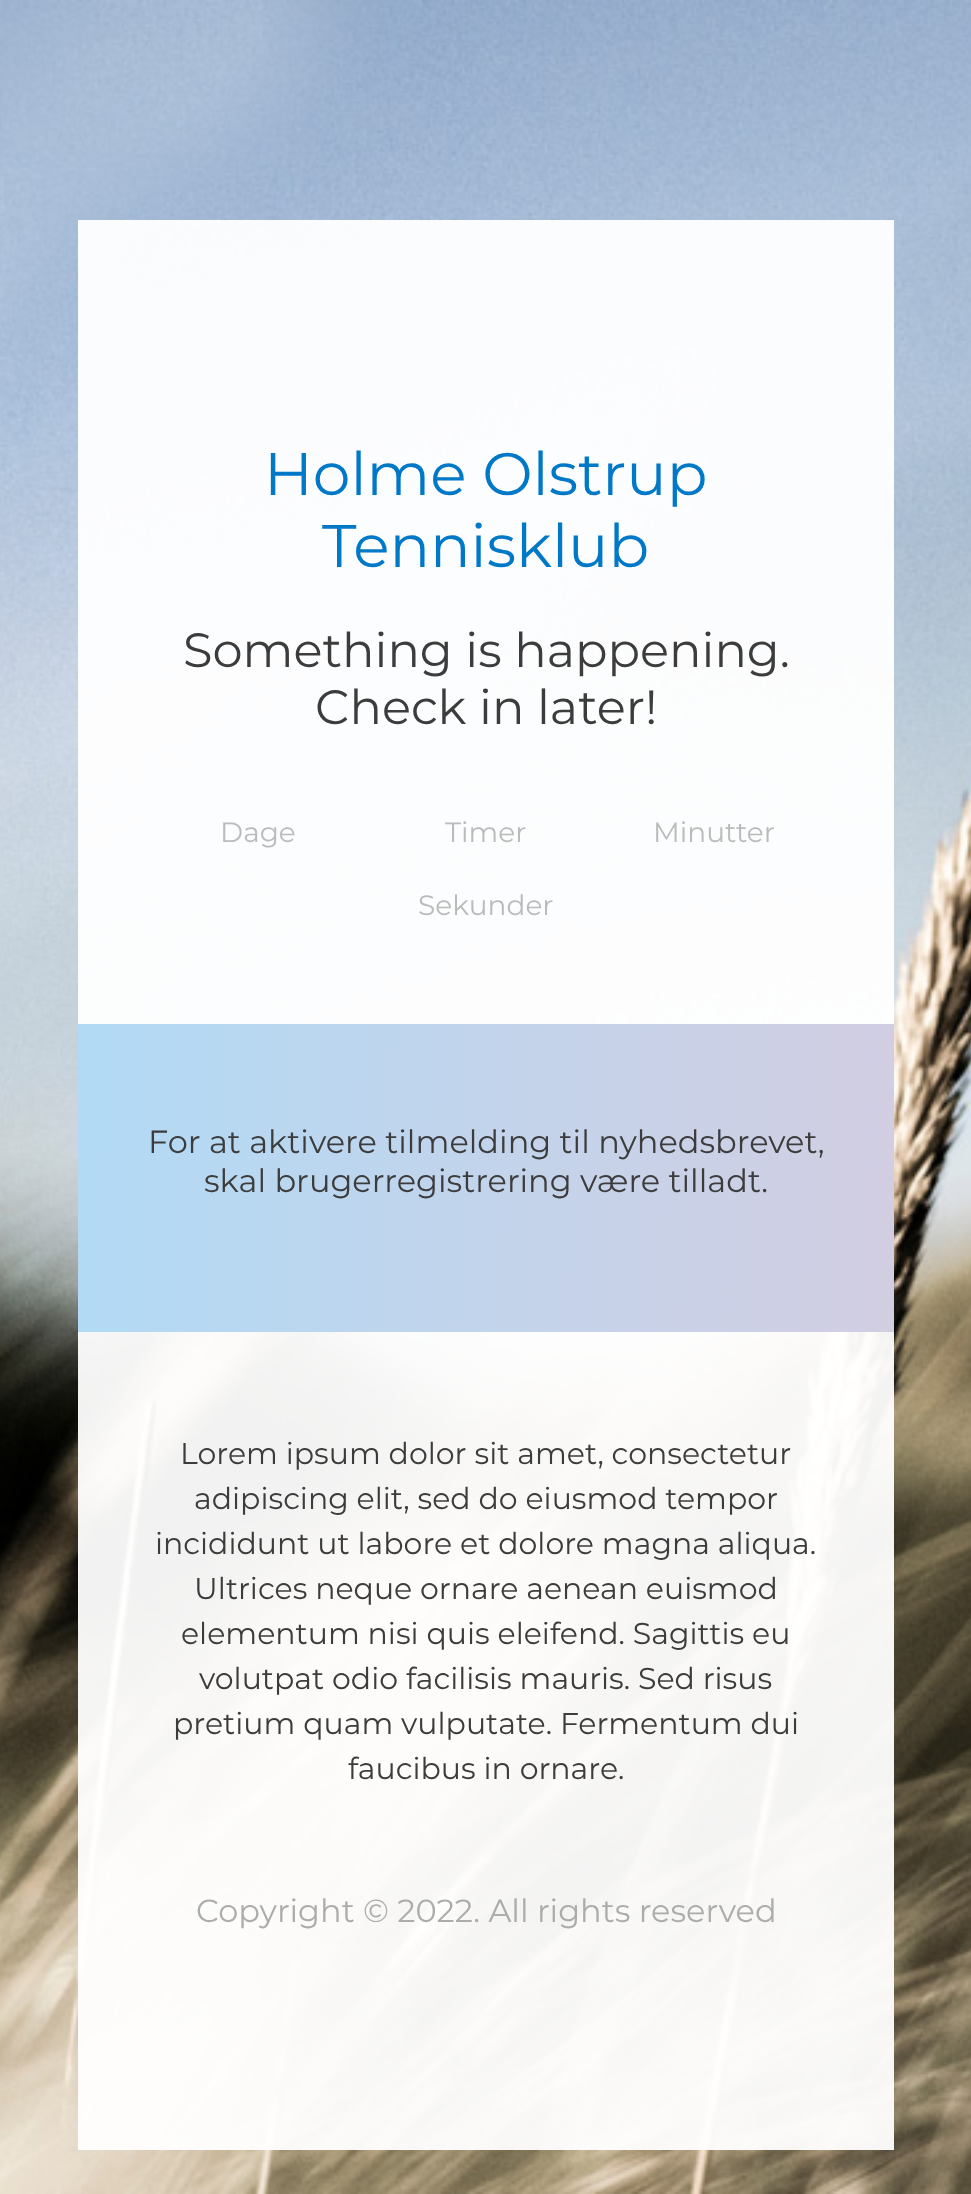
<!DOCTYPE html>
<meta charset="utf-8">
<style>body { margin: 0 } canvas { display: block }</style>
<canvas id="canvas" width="971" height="2194"></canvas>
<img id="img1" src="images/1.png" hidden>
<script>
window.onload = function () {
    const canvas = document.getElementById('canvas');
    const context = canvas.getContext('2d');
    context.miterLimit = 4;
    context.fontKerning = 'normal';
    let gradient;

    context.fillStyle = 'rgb(255, 255, 255)';
    context.fillRect(0, 0, 971, 2194);
    context.drawImage(document.getElementById('img1'), 0, 0, 971, 2194);
    context.fillStyle = 'rgba(255, 255, 255, 0.95)';
    context.fillRect(78, 220, 816, 1930);
    gradient = context.createLinearGradient(74, 1168, 898, 1188);
    gradient.addColorStop(0, 'rgb(178, 218, 245)');
    gradient.addColorStop(1, 'rgb(210, 206, 226)');
    context.fillStyle = gradient;
    context.fillRect(78, 1024, 816, 308);
    context.font = '60px Montserrat';
    context.fillStyle = 'rgb(0, 120, 200)';
    context.fillText('Holme Olstrup', 264, 495);
    context.fillText('Tennisklub', 322, 567);
    context.font = '48px Montserrat';
    context.fillStyle = 'rgb(60, 60, 60)';
    context.fillText('Something is happening.', 183, 667);
    context.fillText('Check in later!', 315, 724);
    context.font = '28px Montserrat';
    context.fillStyle = 'rgb(187, 187, 187)';
    context.fillText('Dage', 220, 842);
    context.fillText('Timer', 445, 842);
    context.fillText('Minutter', 653, 842);
    context.fillText('Sekunder', 418, 915);
    context.font = '32px Montserrat';
    context.fillStyle = 'rgb(60, 60, 60)';
    context.fillText('For at aktivere tilmelding til nyhedsbrevet,', 148, 1153);
    context.fillText('skal brugerregistrering være tilladt.', 204, 1192);
    context.font = '30px Montserrat';
    context.fillText('Lorem ipsum dolor sit amet, consectetur', 180, 1464);
    context.fillText('adipiscing elit, sed do eiusmod tempor', 194, 1509);
    context.fillText('incididunt ut labore et dolore magna aliqua.', 155, 1554);
    context.fillText('Ultrices neque ornare aenean euismod', 194, 1599);
    context.fillText('elementum nisi quis eleifend. Sagittis eu', 181, 1644);
    context.fillText('volutpat odio facilisis mauris. Sed risus', 199, 1689);
    context.fillText('pretium quam vulputate. Fermentum dui', 173, 1734);
    context.fillText('faucibus in ornare.', 348, 1779);
    context.font = '32px Montserrat';
    context.fillStyle = 'rgb(172, 172, 172)';
    context.fillText('Copyright © 2022. All rights reserved', 196, 1922);
};
</script>
